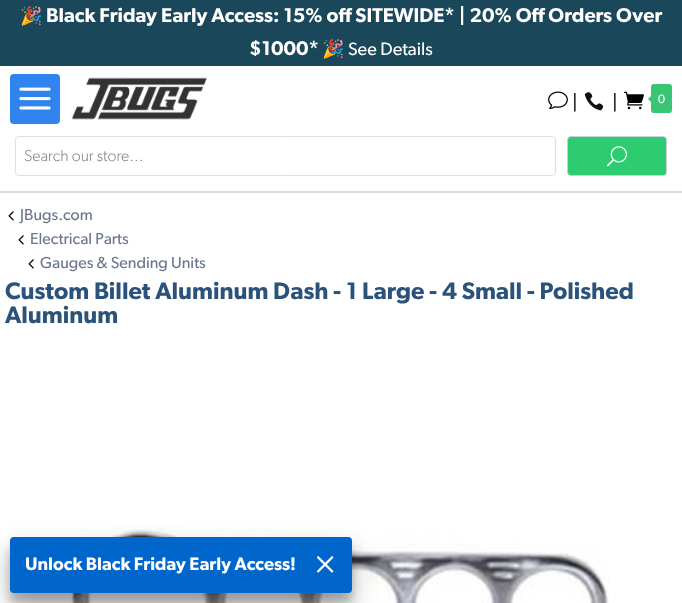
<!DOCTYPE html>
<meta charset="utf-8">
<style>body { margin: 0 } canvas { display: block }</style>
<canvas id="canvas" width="682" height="603"></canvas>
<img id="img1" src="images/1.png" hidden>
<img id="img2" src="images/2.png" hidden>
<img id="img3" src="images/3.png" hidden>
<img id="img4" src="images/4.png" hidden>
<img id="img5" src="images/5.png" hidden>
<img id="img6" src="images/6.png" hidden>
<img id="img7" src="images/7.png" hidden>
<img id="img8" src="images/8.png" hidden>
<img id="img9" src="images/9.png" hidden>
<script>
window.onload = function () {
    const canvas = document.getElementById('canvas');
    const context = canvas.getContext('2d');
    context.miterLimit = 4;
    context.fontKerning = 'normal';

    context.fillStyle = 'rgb(255, 255, 255)';
    context.fillRect(0, 0, 682, 603);
    context.fillStyle = 'rgb(27, 71, 90)';
    context.fillRect(0, 0, 682, 66);
    context.fillStyle = 'rgb(47, 132, 237)';
    context.beginPath();
    context.roundRect(10, 74, 50, 50, 4);
    context.fill();
    context.drawImage(document.getElementById('img1'), 19, 87, 32, 23);
    context.drawImage(document.getElementById('img2'), 71, 77, 136, 43);
    context.drawImage(document.getElementById('img3'), 548, 91, 20, 18);
    context.drawImage(document.getElementById('img4'), 584, 92, 20, 19);
    context.drawImage(document.getElementById('img5'), 624, 91, 20, 19);
    context.fillStyle = 'rgb(56, 197, 116)';
    context.beginPath();
    context.roundRect(652, 85, 19, 27, 2);
    context.fill();
    context.strokeStyle = 'rgb(56, 197, 116)';
    context.lineWidth = 2;
    context.stroke();
    context.beginPath();
    context.moveTo(653, 94);
    context.lineTo(653, 104);
    context.lineTo(648, 99);
    context.closePath();
    context.fill();
    context.beginPath();
    context.roundRect(15.5, 136.5, 540, 39, 3.5);
    context.strokeStyle = 'rgb(223, 225, 225)';
    context.lineWidth = 1;
    context.stroke();
    context.fillStyle = 'rgb(46, 204, 113)';
    context.beginPath();
    context.roundRect(567.5, 136.5, 99, 39, 3.5);
    context.fill();
    context.strokeStyle = 'rgb(204, 209, 217)';
    context.stroke();
    context.drawImage(document.getElementById('img6'), 607, 146, 20, 21);
    context.fillStyle = 'rgb(220, 220, 220)';
    context.fillRect(0, 191, 682, 2);
    context.drawImage(document.getElementById('img7'), 8, 211, 6, 10);
    context.drawImage(document.getElementById('img7'), 18, 235, 6, 10);
    context.drawImage(document.getElementById('img7'), 28, 259, 6, 10);
    context.drawImage(document.getElementById('img8'), 71, 526, 538, 77);
    context.fillStyle = 'rgba(0, 0, 0, 0.22)';
    context.filter = 'blur(5px)';
    context.beginPath();
    context.roundRect(10, 547, 342, 56, 4);
    context.fill();
    context.filter = 'none';
    context.fillStyle = 'rgba(0, 0, 0, 0.25)';
    context.filter = 'blur(14px)';
    context.beginPath();
    context.roundRect(10, 551, 342, 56, 4);
    context.fill();
    context.filter = 'none';
    context.fillStyle = 'rgb(0, 102, 204)';
    context.beginPath();
    context.roundRect(10, 537, 342, 56, 4);
    context.fill();
    context.drawImage(document.getElementById('img9'), 317, 556, 17, 17);
    context.font = '18px Noto Color Emoji';
    context.fillStyle = 'rgb(255, 255, 255)';
    context.fillText('🎉', 20, 22);
    context.font = '600 20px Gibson';
    context.fillText('Black Friday Early Access: 15% off SITEWIDE* | 20% Off Orders Over', 46, 22);
    context.fillText('$1000*', 249, 55);
    context.font = '18px Noto Color Emoji';
    context.fillText('🎉', 322, 55);
    context.font = '18px Gibson';
    context.fillText('See Details', 348, 55);
    context.font = '20px Gibson';
    context.fillStyle = 'rgb(0, 0, 0)';
    context.fillText('|', 572, 109);
    context.fillText('|', 612, 109);
    context.font = '12px Gibson';
    context.fillStyle = 'rgb(255, 255, 255)';
    context.fillText('0', 658, 103);
    context.font = '300 16px Gibson';
    context.fillStyle = 'rgb(138, 123, 123)';
    context.fillText('Search our store…', 24, 161);
    context.font = '16px Gibson';
    context.fillStyle = 'rgb(106, 118, 140)';
    context.fillText('JBugs.com', 20, 220);
    context.fillText('Electrical Parts', 30, 244);
    context.fillText('Gauges & Sending Units', 40, 268);
    context.font = '600 24px Gibson';
    context.fillStyle = 'rgb(42, 82, 122)';
    context.fillText('Custom Billet Aluminum Dash - 1 Large - 4 Small - Polished', 5, 299);
    context.fillText('Aluminum', 5, 323);
    context.font = '600 18px Gibson';
    context.fillStyle = 'rgb(255, 255, 255)';
    context.fillText('Unlock Black Friday Early Access!', 25, 570);
};
</script>
